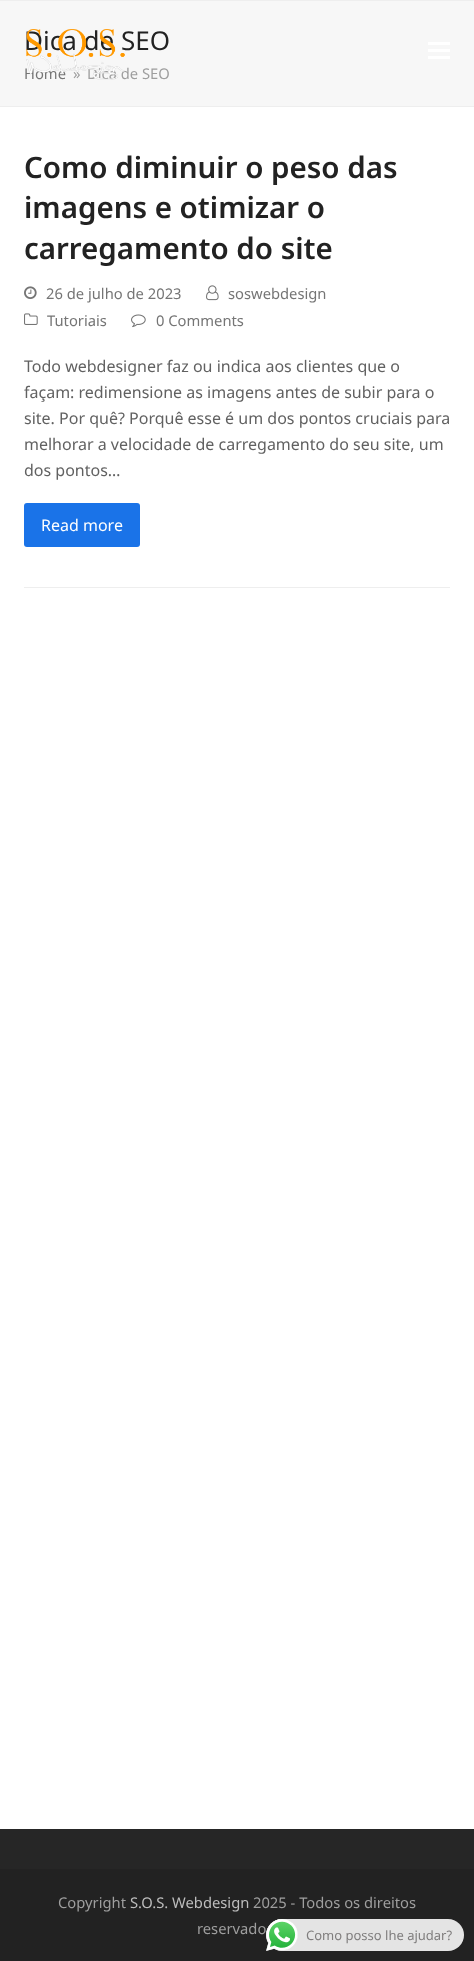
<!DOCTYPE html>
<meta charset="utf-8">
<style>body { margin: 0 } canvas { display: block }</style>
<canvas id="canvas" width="474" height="1961"></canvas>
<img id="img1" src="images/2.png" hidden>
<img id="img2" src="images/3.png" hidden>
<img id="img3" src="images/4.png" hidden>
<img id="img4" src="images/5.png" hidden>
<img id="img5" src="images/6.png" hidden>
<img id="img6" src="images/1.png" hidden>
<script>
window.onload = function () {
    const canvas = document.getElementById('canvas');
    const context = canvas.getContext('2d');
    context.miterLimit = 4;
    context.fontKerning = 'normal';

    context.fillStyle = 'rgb(255, 255, 255)';
    context.fillRect(0, 0, 474, 1961);
    context.fillStyle = 'rgb(247, 247, 247)';
    context.fillRect(0, 1, 474, 105);
    context.fillStyle = 'rgb(255, 255, 255)';
    context.fillRect(428, 49, 22, 3);
    context.fillRect(428, 42, 22, 3);
    context.fillRect(428, 56, 22, 3);
    context.fillStyle = 'rgb(238, 238, 238)';
    context.fillRect(0, 0, 474, 1);
    context.fillRect(0, 106, 474, 1);
    context.drawImage(document.getElementById('img1'), 24, 286, 13, 13);
    context.drawImage(document.getElementById('img2'), 206, 285, 13, 16);
    context.drawImage(document.getElementById('img3'), 24, 313, 14, 12);
    context.drawImage(document.getElementById('img4'), 131, 314, 15, 14);
    context.fillStyle = 'rgb(26, 115, 232)';
    context.beginPath();
    context.roundRect(24, 503, 116, 44, 3);
    context.fill();
    context.fillStyle = 'rgb(238, 238, 238)';
    context.fillRect(24, 587, 426, 1);
    context.fillStyle = 'rgb(38, 38, 38)';
    context.fillRect(0, 1829, 474, 40);
    context.fillStyle = 'rgb(34, 34, 34)';
    context.fillRect(0, 1869, 474, 92);
    context.fillStyle = 'rgb(228, 228, 228)';
    context.beginPath();
    context.roundRect(266, 1919, 198, 32, 16);
    context.fill();
    context.drawImage(document.getElementById('img5'), 266, 1919, 32, 32);
    context.font = '26px Noto Sans';
    context.fillStyle = 'rgb(34, 34, 34)';
    context.fillText('Dica de SEO', 24, 50);
    context.font = '14.75px Noto Sans';
    context.fillStyle = 'rgb(117, 117, 117)';
    context.fillText('Home', 24, 79);
    context.fillStyle = 'rgb(158, 158, 158)';
    context.fillText('»', 73, 79);
    context.fillText('Dica de SEO', 87, 79);
    context.drawImage(document.getElementById('img6'), 26, 29, 99, 51);
    context.font = '600 29.5px Noto Sans';
    context.fillStyle = 'rgb(34, 34, 34)';
    context.fillText('Como diminuir o peso das', 24, 178);
    context.fillText('imagens e otimizar o', 24, 218);
    context.fillText('carregamento do site', 24, 259);
    context.font = '14.75px Noto Sans';
    context.fillStyle = 'rgb(117, 117, 117)';
    context.fillText('26 de julho de 2023', 46, 299);
    context.fillText('soswebdesign', 228, 299);
    context.fillText('Tutoriais', 47, 326);
    context.fillText('0 Comments', 156, 326);
    context.font = '16px Noto Sans';
    context.fillStyle = 'rgb(97, 97, 97)';
    context.fillText('Todo webdesigner faz ou indica aos clientes que o', 24, 372);
    context.fillText('façam: redimensione as imagens antes de subir para o', 24, 398);
    context.fillText('site. Por quê? Porquê esse é um dos pontos cruciais para', 24, 424);
    context.fillText('melhorar a velocidade de carregamento do seu site, um', 24, 450);
    context.fillText('dos pontos…', 24, 476);
    context.fillStyle = 'rgb(255, 255, 255)';
    context.fillText('Read more', 41, 531);
    context.font = '14.75px Noto Sans';
    context.fillStyle = 'rgb(158, 158, 158)';
    context.fillText('Copyright', 58, 1908);
    context.fillStyle = 'rgb(189, 189, 189)';
    context.fillText('S.O.S. Webdesign', 130, 1908);
    context.fillStyle = 'rgb(158, 158, 158)';
    context.fillText('2025 - Todos os direitos', 253, 1908);
    context.fillText('reservado', 197, 1934);
    context.font = '13px Noto Sans';
    context.fillStyle = 'rgb(127, 125, 125)';
    context.fillText('Como posso lhe ajudar?', 306, 1940);
};
</script>
